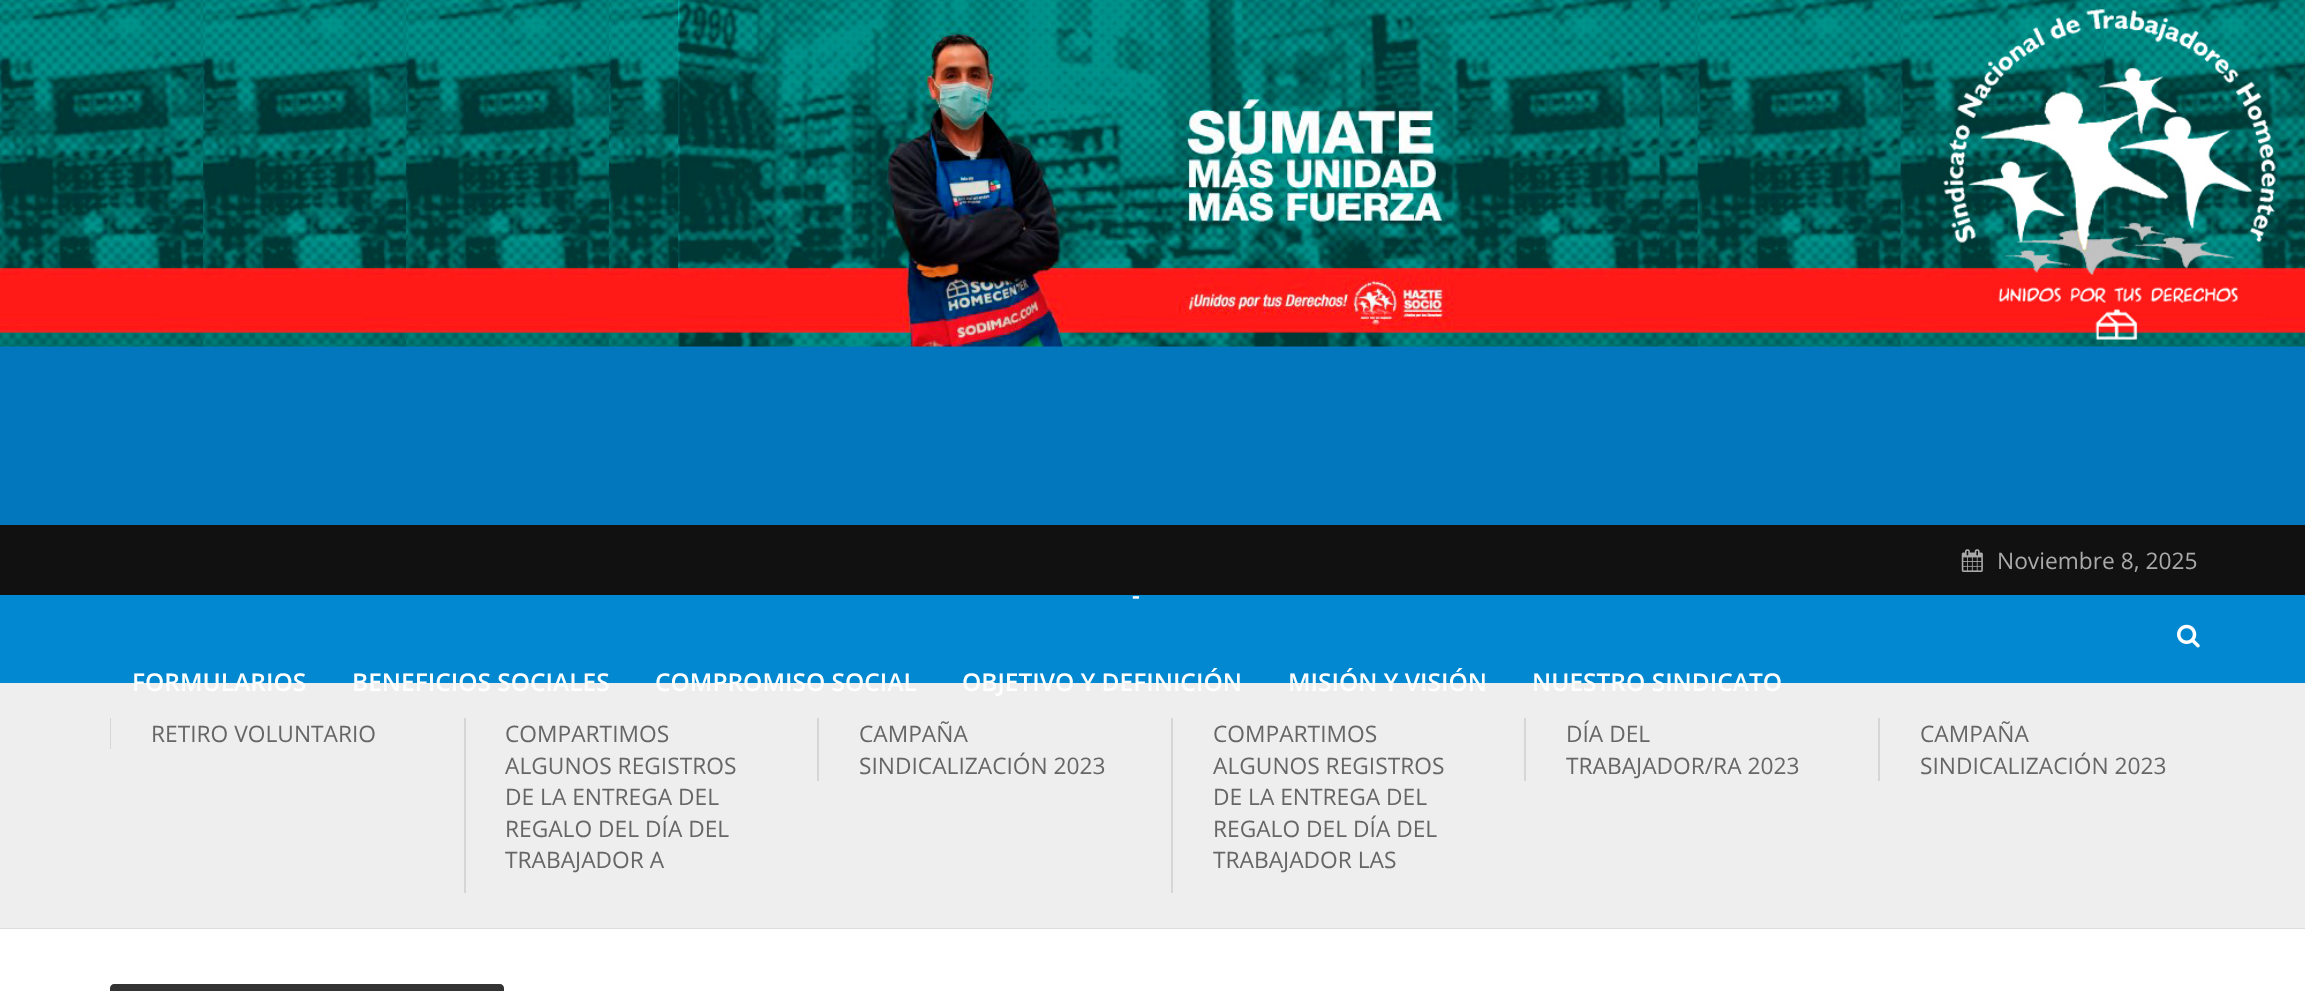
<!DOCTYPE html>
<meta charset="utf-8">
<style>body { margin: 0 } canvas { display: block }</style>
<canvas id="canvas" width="2305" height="991"></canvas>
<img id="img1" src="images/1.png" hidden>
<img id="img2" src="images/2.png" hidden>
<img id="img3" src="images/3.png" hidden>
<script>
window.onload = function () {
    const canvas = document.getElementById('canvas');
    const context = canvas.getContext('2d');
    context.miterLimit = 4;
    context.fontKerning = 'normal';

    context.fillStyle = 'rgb(238, 238, 238)';
    context.fillRect(0, 0, 2305, 991);
    context.fillStyle = 'rgb(2, 119, 189)';
    context.fillRect(0, 346, 2305, 179);
    context.drawImage(document.getElementById('img1'), 0, 0, 2305, 347);
    context.fillStyle = 'rgb(17, 17, 17)';
    context.fillRect(0, 525, 2305, 70);
    context.drawImage(document.getElementById('img2'), 1961, 549, 22, 23);
    context.fillStyle = 'rgb(2, 136, 209)';
    context.fillRect(0, 595, 2305, 88);
    context.drawImage(document.getElementById('img3'), 2177, 624, 23, 24);
    context.fillStyle = 'rgb(214, 214, 214)';
    context.fillRect(110, 718, 1, 31);
    context.fillRect(464, 718, 2, 175);
    context.fillRect(817, 718, 2, 63);
    context.fillRect(1171, 718, 2, 175);
    context.fillRect(1524, 718, 2, 63);
    context.fillRect(1878, 718, 2, 63);
    context.strokeStyle = 'rgb(221, 221, 221)';
    context.lineWidth = 2;
    context.strokeRect(-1, 929, 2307, 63);
    context.fillStyle = 'rgb(255, 255, 255)';
    context.fillRect(0, 929, 2305, 62);
    context.fillStyle = 'rgb(51, 51, 51)';
    context.beginPath();
    context.moveTo(114, 984);
    context.lineTo(500, 984);
    context.bezierCurveTo(502, 984, 504, 986, 504, 988);
    context.lineTo(504, 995);
    context.lineTo(110, 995);
    context.lineTo(110, 988);
    context.bezierCurveTo(110, 986, 112, 984, 114, 984);
    context.closePath();
    context.fill();
    context.font = '22.75px Open Sans';
    context.fillStyle = 'rgb(170, 170, 170)';
    context.fillText('Noviembre 8, 2025', 1997, 569);
    context.font = '600 24.5px Open Sans';
    context.fillStyle = 'rgb(255, 255, 255)';
    context.fillText('-', 1132, 604);
    context.fillText('FORMULARIOS', 132, 691);
    context.fillText('BENEFICIOS SOCIALES', 352, 691);
    context.fillText('COMPROMISO SOCIAL', 655, 691);
    context.fillText('OBJETIVO Y DEFINICIÓN', 962, 691);
    context.fillText('MISIÓN Y VISIÓN', 1288, 691);
    context.fillText('NUESTRO SINDICATO', 1532, 691);
    context.font = '22.75px Open Sans';
    context.fillStyle = 'rgb(102, 102, 102)';
    context.fillText('RETIRO VOLUNTARIO', 151, 742);
    context.fillText('COMPARTIMOS', 505, 742);
    context.fillText('ALGUNOS REGISTROS', 505, 774);
    context.fillText('DE LA ENTREGA DEL', 505, 805);
    context.fillText('REGALO DEL DÍA DEL', 505, 837);
    context.fillText('TRABAJADOR A', 505, 868);
    context.fillText('CAMPAÑA', 859, 742);
    context.fillText('SINDICALIZACIÓN 2023', 859, 774);
    context.fillText('COMPARTIMOS', 1213, 742);
    context.fillText('ALGUNOS REGISTROS', 1213, 774);
    context.fillText('DE LA ENTREGA DEL', 1213, 805);
    context.fillText('REGALO DEL DÍA DEL', 1213, 837);
    context.fillText('TRABAJADOR LAS', 1213, 868);
    context.fillText('DÍA DEL', 1566, 742);
    context.fillText('TRABAJADOR/RA 2023', 1566, 774);
    context.fillText('CAMPAÑA', 1920, 742);
    context.fillText('SINDICALIZACIÓN 2023', 1920, 774);
};
</script>
